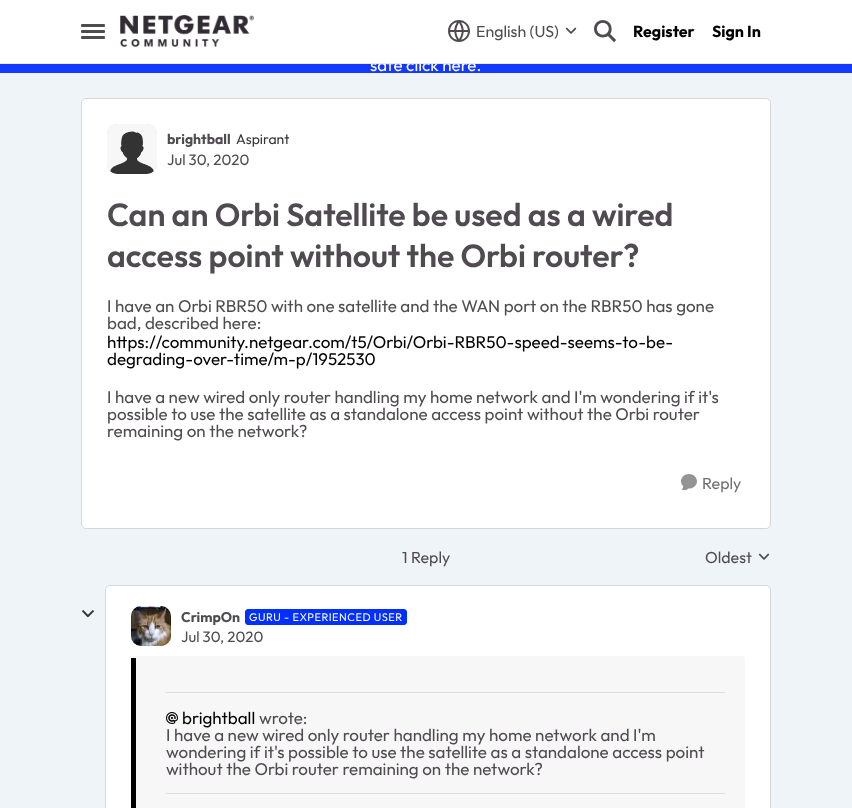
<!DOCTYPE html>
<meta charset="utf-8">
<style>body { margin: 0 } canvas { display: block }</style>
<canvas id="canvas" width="852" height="808"></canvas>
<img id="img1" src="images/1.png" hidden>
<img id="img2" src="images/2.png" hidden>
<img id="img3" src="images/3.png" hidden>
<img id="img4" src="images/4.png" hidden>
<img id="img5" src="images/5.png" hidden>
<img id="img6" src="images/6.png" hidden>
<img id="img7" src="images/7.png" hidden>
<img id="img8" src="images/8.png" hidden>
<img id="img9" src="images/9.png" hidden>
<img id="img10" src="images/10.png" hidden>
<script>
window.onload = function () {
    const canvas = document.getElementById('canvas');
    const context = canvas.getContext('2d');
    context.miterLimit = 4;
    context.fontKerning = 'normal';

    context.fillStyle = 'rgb(239, 244, 249)';
    context.fillRect(0, 0, 852, 808);
    context.fillStyle = 'rgb(20, 57, 255)';
    context.fillRect(0, 64, 852, 9);
    context.fillStyle = 'rgba(51, 51, 51, 0.06)';
    context.filter = 'blur(2px)';
    context.beginPath();
    context.rect(0, 2, 852, 64);
    context.fill();
    context.filter = 'none';
    context.fillStyle = 'rgb(255, 255, 255)';
    context.fillRect(0, 0, 852, 63);
    context.fillStyle = 'rgb(80, 75, 81)';
    context.beginPath();
    context.roundRect(81, 24, 24, 3, 1);
    context.fill();
    context.beginPath();
    context.roundRect(81, 30, 24, 3, 1);
    context.fill();
    context.beginPath();
    context.roundRect(81, 36, 24, 3, 1);
    context.fill();
    context.drawImage(document.getElementById('img1'), 120, 15, 134, 32);
    context.drawImage(document.getElementById('img2'), 448, 20, 22, 22);
    context.drawImage(document.getElementById('img3'), 565, 27, 12, 7);
    context.drawImage(document.getElementById('img4'), 594, 20, 22, 23);
    context.fillStyle = 'rgb(255, 255, 255)';
    context.beginPath();
    context.roundRect(81, 98, 690, 431, 5);
    context.fill();
    context.beginPath();
    context.roundRect(81.5, 98.5, 689, 430, 4.5);
    context.strokeStyle = 'rgba(0, 0, 0, 0.16)';
    context.stroke();
    context.fillStyle = 'rgb(217, 217, 217)';
    context.beginPath();
    context.roundRect(107, 124, 50, 50, 10);
    context.fill();
    context.drawImage(document.getElementById('img5'), 107, 124, 50, 50);
    context.drawImage(document.getElementById('img6'), 681, 474, 16, 16);
    context.drawImage(document.getElementById('img7'), 758, 553, 12, 7);
    context.drawImage(document.getElementById('img8'), 82, 610, 12, 8);
    context.fillStyle = 'rgb(255, 255, 255)';
    context.beginPath();
    context.roundRect(105, 585, 666, 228, 5);
    context.fill();
    context.beginPath();
    context.roundRect(105.5, 585.5, 665, 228, 4.5);
    context.stroke();
    context.fillStyle = 'rgb(217, 217, 217)';
    context.beginPath();
    context.roundRect(131, 606, 40, 40, 10);
    context.fill();
    context.drawImage(document.getElementById('img9'), 131, 606, 40, 40);
    context.fillStyle = 'rgb(0, 47, 255)';
    context.beginPath();
    context.roundRect(245.5, 609.5, 161, 15, 2.5);
    context.fill();
    context.strokeStyle = 'rgb(0, 47, 255)';
    context.stroke();
    context.fillStyle = 'rgb(247, 247, 247)';
    context.beginPath();
    context.roundRect(131, 656, 614, 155, 3);
    context.fill();
    context.fillStyle = 'rgb(0, 0, 0)';
    context.fillRect(131, 658, 5, 150);
    context.fillStyle = 'rgb(222, 222, 222)';
    context.fillRect(166, 692, 559, 1);
    context.drawImage(document.getElementById('img10'), 166, 712, 12, 12);
    context.fillRect(166, 793, 559, 1);
    context.font = '16px Outfit';
    context.fillStyle = 'rgb(80, 75, 81)';
    context.fillText('English (US)', 476, 37);
    context.font = 'bold 16px Outfit';
    context.fillStyle = 'rgb(0, 0, 0)';
    context.fillText('Register', 633, 37);
    context.fillText('Sign In', 712, 37);
    context.font = '17px Outfit';
    context.fillStyle = 'rgb(255, 255, 255)';
    context.fillText('safe click here.', 370, 71);
    context.fillStyle = 'rgb(235, 235, 235)';
    context.fillRect(0, 63, 852, 1);
    context.font = 'bold 14px Outfit';
    context.fillStyle = 'rgb(80, 75, 81)';
    context.fillText('brightball', 167, 144);
    context.font = '14px Outfit';
    context.fillStyle = 'rgb(51, 51, 51)';
    context.fillText('Aspirant', 236, 144);
    context.font = '15px Outfit';
    context.fillStyle = 'rgb(80, 75, 81)';
    context.fillText('Jul 30, 2020', 167, 165);
    context.font = '600 32px Outfit';
    context.fillText('Can an Orbi Satellite be used as a wired', 107, 226);
    context.fillText('access point without the Orbi router?', 107, 267);
    context.font = '17px Outfit';
    context.fillText('I have an Orbi RBR50 with one satellite and the WAN port on the RBR50 has gone', 107, 312);
    context.fillText('bad, described here:', 107, 329);
    context.fillStyle = 'rgb(0, 0, 0)';
    context.fillText('https://community.netgear.com/t5/Orbi/Orbi-RBR50-speed-seems-to-be-', 107, 348);
    context.fillText('degrading-over-time/m-p/1952530', 107, 365);
    context.fillStyle = 'rgb(80, 75, 81)';
    context.fillText('I have a new wired only router handling my home network and I\'m wondering if it\'s', 107, 403);
    context.fillText('possible to use the satellite as a standalone access point without the Orbi router', 107, 420);
    context.fillText('remaining on the network?', 107, 437);
    context.font = '16px Outfit';
    context.fillStyle = 'rgb(112, 112, 112)';
    context.fillText('Reply', 702, 489);
    context.fillStyle = 'rgb(80, 75, 81)';
    context.fillText('1 Reply', 402, 563);
    context.fillText('Oldest', 705, 563);
    context.font = 'bold 14px Outfit';
    context.fillText('CrimpOn', 181, 622);
    context.letterSpacing = '0.5px';
    context.font = '11px Outfit';
    context.fillStyle = 'rgb(255, 255, 255)';
    context.fillText('GURU - EXPERIENCED USER', 249, 621);
    context.letterSpacing = '0px';
    context.font = '15px Outfit';
    context.fillStyle = 'rgb(80, 75, 81)';
    context.fillText('Jul 30, 2020', 181, 642);
    context.font = '17px Outfit';
    context.fillStyle = 'rgb(0, 0, 0)';
    context.fillText('brightball', 182, 724);
    context.fillStyle = 'rgb(80, 75, 81)';
    context.fillText('wrote:', 259, 724);
    context.fillText('I have a new wired only router handling my home network and I\'m', 166, 741);
    context.fillText('wondering if it\'s possible to use the satellite as a standalone access point', 166, 758);
    context.fillText('without the Orbi router remaining on the network?', 166, 775);
};
</script>
